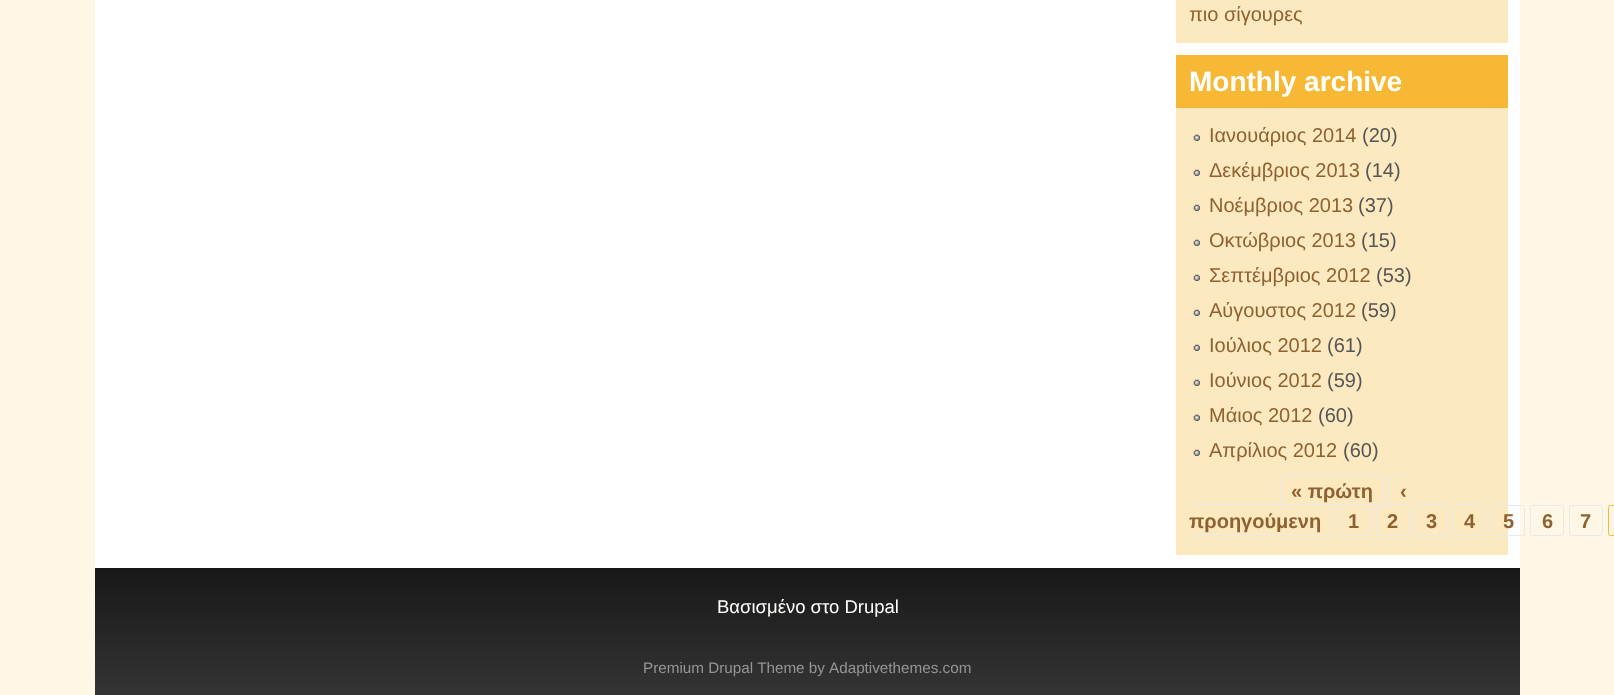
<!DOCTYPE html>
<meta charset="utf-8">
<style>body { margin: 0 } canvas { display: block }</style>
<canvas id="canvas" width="1614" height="695"></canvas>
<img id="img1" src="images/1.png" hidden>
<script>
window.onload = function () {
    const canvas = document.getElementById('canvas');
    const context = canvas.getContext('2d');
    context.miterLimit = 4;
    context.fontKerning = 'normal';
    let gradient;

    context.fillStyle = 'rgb(254, 247, 229)';
    context.fillRect(0, 0, 1614, 695);
    context.fillStyle = 'rgb(255, 255, 255)';
    context.fillRect(95, 0, 1425, 568);
    context.fillStyle = 'rgb(253, 233, 192)';
    context.fillRect(1176, 0, 332, 43);
    context.fillRect(1176, 108, 332, 447);
    context.fillStyle = 'rgb(247, 184, 54)';
    context.fillRect(1176, 55, 332, 53);
    context.drawImage(document.getElementById('img1'), 1193, 134, 7, 7);
    context.drawImage(document.getElementById('img1'), 1193, 169, 7, 7);
    context.drawImage(document.getElementById('img1'), 1193, 204, 7, 7);
    context.drawImage(document.getElementById('img1'), 1193, 239, 7, 7);
    context.drawImage(document.getElementById('img1'), 1193, 274, 7, 7);
    context.drawImage(document.getElementById('img1'), 1193, 309, 7, 7);
    context.drawImage(document.getElementById('img1'), 1193, 344, 7, 7);
    context.drawImage(document.getElementById('img1'), 1193, 379, 7, 7);
    context.drawImage(document.getElementById('img1'), 1193, 414, 7, 7);
    context.drawImage(document.getElementById('img1'), 1193, 449, 7, 7);
    context.beginPath();
    context.roundRect(1280.5, 475.5, 103, 30, 2);
    context.strokeStyle = 'rgb(233, 233, 233)';
    context.stroke();
    context.fillStyle = 'rgb(233, 233, 233)';
    context.fillRect(1390, 475, 16, 1);
    context.fillRect(1389, 476, 1, 29);
    context.fillRect(1189, 505, 93, 1);
    context.fillRect(1331, 506, 1, 29);
    context.fillRect(1189, 535, 142, 1);
    context.beginPath();
    context.roundRect(1338.5, 505.5, 32, 30, 2);
    context.stroke();
    context.beginPath();
    context.roundRect(1376.5, 505.5, 33, 30, 2);
    context.stroke();
    context.beginPath();
    context.roundRect(1415.5, 505.5, 32, 30, 2);
    context.stroke();
    context.beginPath();
    context.roundRect(1453.5, 505.5, 32, 30, 2);
    context.stroke();
    context.beginPath();
    context.roundRect(1491.5, 505.5, 33, 30, 2);
    context.stroke();
    context.beginPath();
    context.roundRect(1530.5, 505.5, 33, 30, 2);
    context.stroke();
    context.beginPath();
    context.roundRect(1569.5, 505.5, 33, 30, 2);
    context.stroke();
    context.beginPath();
    context.roundRect(1608.5, 505.5, 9, 30, 2);
    context.strokeStyle = 'rgb(247, 184, 54)';
    context.stroke();
    gradient = context.createLinearGradient(95, 568, 95, 695);
    gradient.addColorStop(0, 'rgb(24, 24, 24)');
    gradient.addColorStop(1, 'rgb(52, 52, 52)');
    context.fillStyle = gradient;
    context.fillRect(95, 568, 1425, 127);
    context.font = '20px Liberation Sans';
    context.fillStyle = 'rgb(142, 97, 48)';
    context.fillText('πιο σίγουρες', 1189, 21);
    context.font = 'bold 28px Liberation Sans';
    context.fillStyle = 'rgb(255, 255, 252)';
    context.fillText('Monthly archive', 1189, 91);
    context.font = '20px Liberation Sans';
    context.fillStyle = 'rgb(142, 97, 48)';
    context.fillText('Ιανουάριος 2014', 1209, 142);
    context.fillStyle = 'rgb(85, 85, 85)';
    context.fillText('(20)', 1362, 142);
    context.fillStyle = 'rgb(142, 97, 48)';
    context.fillText('Δεκέμβριος 2013', 1209, 177);
    context.fillStyle = 'rgb(85, 85, 85)';
    context.fillText('(14)', 1365, 177);
    context.fillStyle = 'rgb(142, 97, 48)';
    context.fillText('Νοέμβριος 2013', 1209, 212);
    context.fillStyle = 'rgb(85, 85, 85)';
    context.fillText('(37)', 1358, 212);
    context.fillStyle = 'rgb(142, 97, 48)';
    context.fillText('Οκτώβριος 2013', 1209, 247);
    context.fillStyle = 'rgb(85, 85, 85)';
    context.fillText('(15)', 1361, 247);
    context.fillStyle = 'rgb(142, 97, 48)';
    context.fillText('Σεπτέμβριος 2012', 1209, 282);
    context.fillStyle = 'rgb(85, 85, 85)';
    context.fillText('(53)', 1376, 282);
    context.fillStyle = 'rgb(142, 97, 48)';
    context.fillText('Αύγουστος 2012', 1209, 317);
    context.fillStyle = 'rgb(85, 85, 85)';
    context.fillText('(59)', 1361, 317);
    context.fillStyle = 'rgb(142, 97, 48)';
    context.fillText('Ιούλιος 2012', 1209, 352);
    context.fillStyle = 'rgb(85, 85, 85)';
    context.fillText('(61)', 1327, 352);
    context.fillStyle = 'rgb(142, 97, 48)';
    context.fillText('Ιούνιος 2012', 1209, 387);
    context.fillStyle = 'rgb(85, 85, 85)';
    context.fillText('(59)', 1327, 387);
    context.fillStyle = 'rgb(142, 97, 48)';
    context.fillText('Μάιος 2012', 1209, 422);
    context.fillStyle = 'rgb(85, 85, 85)';
    context.fillText('(60)', 1318, 422);
    context.fillStyle = 'rgb(142, 97, 48)';
    context.fillText('Απρίλιος 2012', 1209, 457);
    context.fillStyle = 'rgb(85, 85, 85)';
    context.fillText('(60)', 1343, 457);
    context.font = 'bold 20px Liberation Sans';
    context.fillStyle = 'rgb(142, 97, 48)';
    context.fillText('« πρώτη', 1291, 498);
    context.fillText('‹', 1400, 498);
    context.fillText('προηγούμενη', 1189, 528);
    context.fillText('1', 1348, 528);
    context.fillText('2', 1387, 528);
    context.fillText('3', 1426, 528);
    context.fillText('4', 1464, 528);
    context.fillText('5', 1503, 528);
    context.fillText('6', 1542, 528);
    context.fillText('7', 1580, 528);
    context.font = '18.5px Liberation Sans';
    context.fillStyle = 'rgb(255, 255, 252)';
    context.fillText('Βασισμένο στο Drupal', 717, 613);
    context.font = '15.25px Liberation Sans';
    context.fillStyle = 'rgb(148, 150, 149)';
    context.fillText('Premium Drupal Theme by', 643, 673);
    context.fillText('Adaptivethemes.com', 829, 673);
};
</script>
